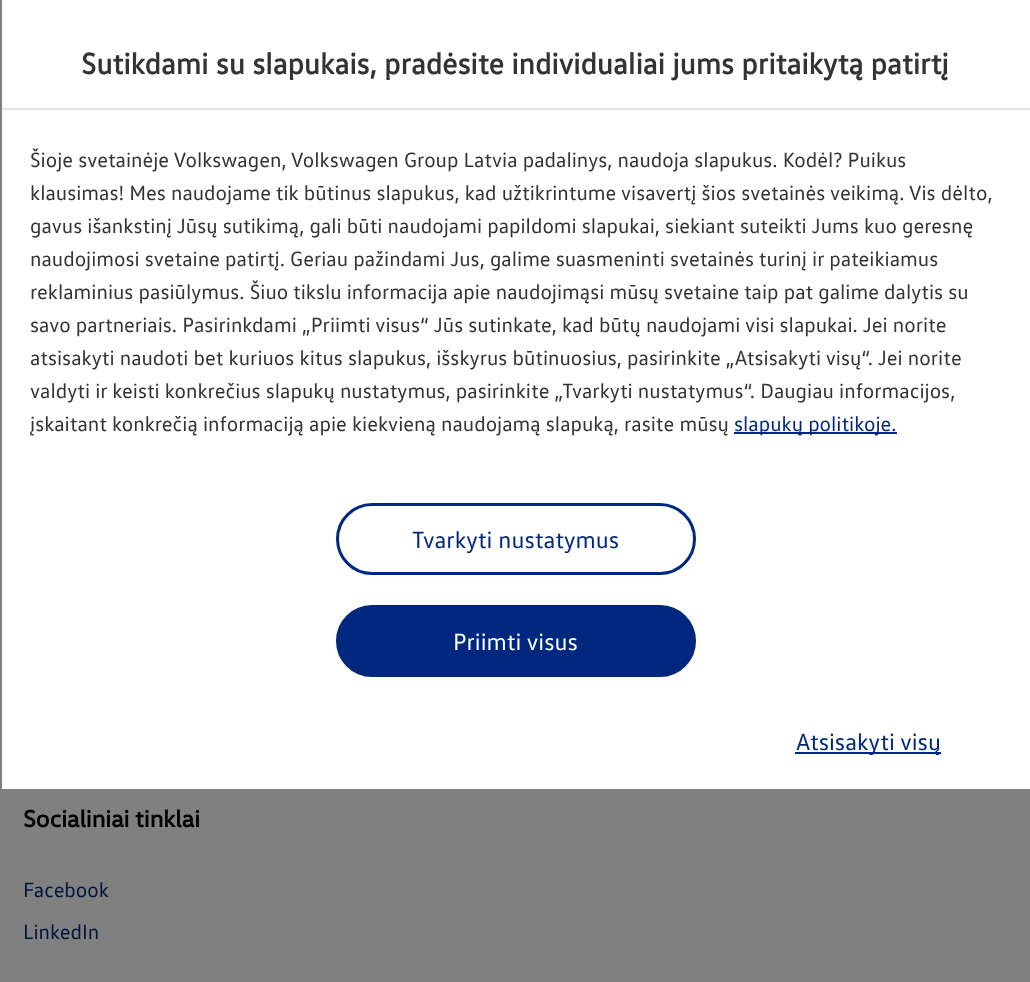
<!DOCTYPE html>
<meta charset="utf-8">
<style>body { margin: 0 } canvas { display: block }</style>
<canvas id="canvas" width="1030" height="982"></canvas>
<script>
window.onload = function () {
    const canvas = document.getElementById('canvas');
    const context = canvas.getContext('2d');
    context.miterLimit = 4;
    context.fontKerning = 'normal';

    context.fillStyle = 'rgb(128, 128, 128)';
    context.fillRect(0, 0, 1030, 982);
    context.fillStyle = 'rgb(255, 255, 255)';
    context.fillRect(2, 0, 1028, 789);
    context.fillStyle = 'rgb(223, 228, 232)';
    context.fillRect(2, 108, 1028, 2);
    context.fillStyle = 'rgb(0, 40, 126)';
    context.fillRect(734, 432, 163, 2);
    context.beginPath();
    context.roundRect(337.5, 504.5, 357, 69, 34.5);
    context.strokeStyle = 'rgb(0, 40, 126)';
    context.lineWidth = 3;
    context.stroke();
    context.beginPath();
    context.roundRect(337.5, 606.5, 357, 69, 34.5);
    context.fill();
    context.stroke();
    context.fillRect(795, 752, 146, 2);
    context.font = 'bold 30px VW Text';
    context.fillStyle = 'rgb(51, 51, 51)';
    context.fillText('Sutikdami su slapukais, pradėsite individualiai jums pritaikytą patirtį', 81, 74);
    context.font = '21px VW Text';
    context.fillText('Šioje svetainėje Volkswagen, Volkswagen Group Latvia padalinys, naudoja slapukus. Kodėl? Puikus', 30, 167);
    context.fillText('klausimas! Mes naudojame tik būtinus slapukus, kad užtikrintume visavertį šios svetainės veikimą. Vis dėlto,', 30, 200);
    context.fillText('gavus išankstinį Jūsų sutikimą, gali būti naudojami papildomi slapukai, siekiant suteikti Jums kuo geresnę', 30, 233);
    context.fillText('naudojimosi svetaine patirtį. Geriau pažindami Jus, galime suasmeninti svetainės turinį ir pateikiamus', 30, 266);
    context.fillText('reklaminius pasiūlymus. Šiuo tikslu informacija apie naudojimąsi mūsų svetaine taip pat galime dalytis su', 30, 299);
    context.fillText('savo partneriais. Pasirinkdami „Priimti visus“ Jūs sutinkate, kad būtų naudojami visi slapukai. Jei norite', 30, 332);
    context.fillText('atsisakyti naudoti bet kuriuos kitus slapukus, išskyrus būtinuosius, pasirinkite „Atsisakyti visų“. Jei norite', 30, 365);
    context.fillText('valdyti ir keisti konkrečius slapukų nustatymus, pasirinkite „Tvarkyti nustatymus“. Daugiau informacijos,', 30, 398);
    context.fillText('įskaitant konkrečią informaciją apie kiekvieną naudojamą slapuką, rasite mūsų', 30, 431);
    context.fillStyle = 'rgb(0, 40, 126)';
    context.fillText('slapukų politikoje.', 734, 431);
    context.font = '24px VW Text';
    context.fillText('Tvarkyti nustatymus', 412, 548);
    context.fillStyle = 'rgb(255, 255, 255)';
    context.fillText('Priimti visus', 453, 650);
    context.fillStyle = 'rgb(0, 40, 126)';
    context.fillText('Atsisakyti visų', 796, 750);
    context.font = 'bold 24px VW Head';
    context.fillStyle = 'rgb(0, 0, 0)';
    context.fillText('Socialiniai tinklai', 23, 827);
    context.font = '21px VW Text';
    context.fillStyle = 'rgb(0, 20, 63)';
    context.fillText('Facebook', 23, 897);
    context.fillText('LinkedIn', 23, 939);
};
</script>
